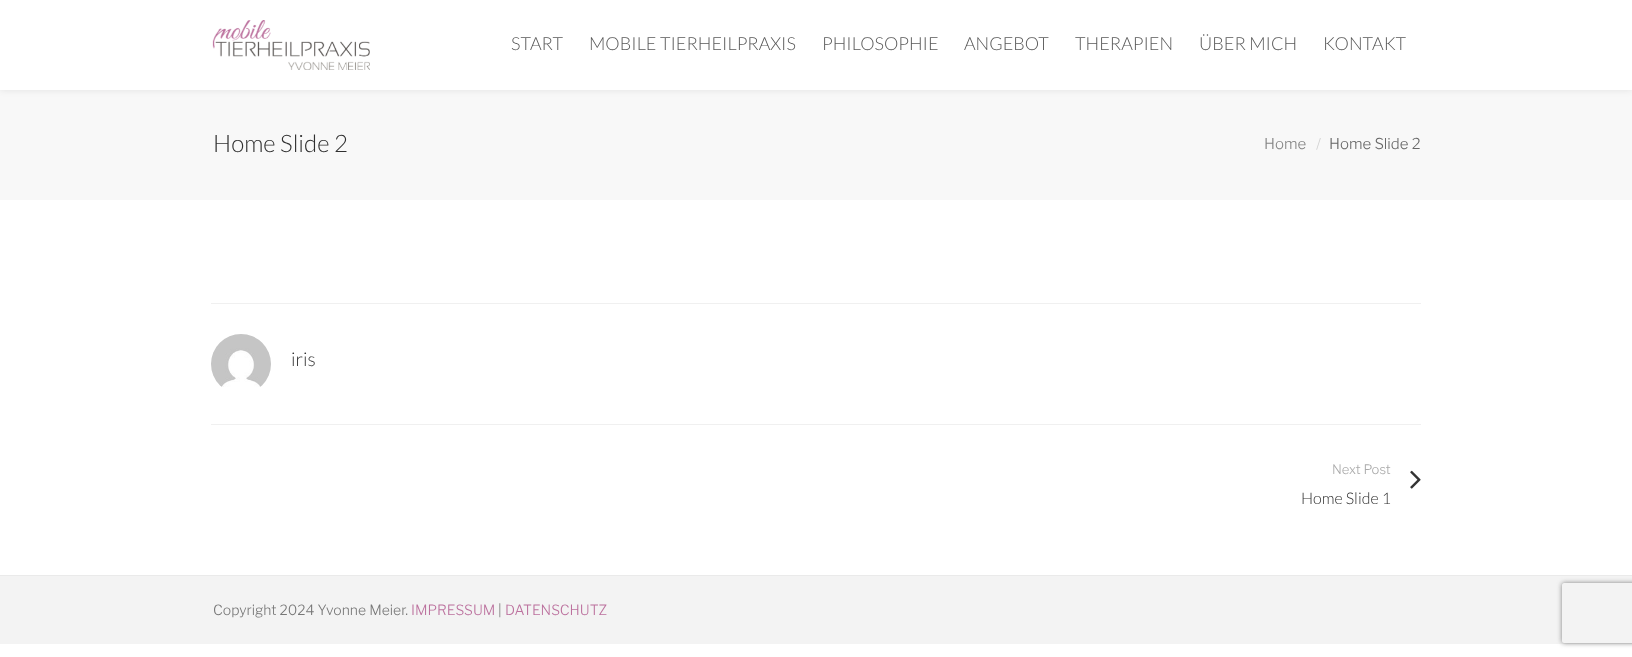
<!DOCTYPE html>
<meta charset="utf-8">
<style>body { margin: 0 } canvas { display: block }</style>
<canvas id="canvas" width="1632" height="657"></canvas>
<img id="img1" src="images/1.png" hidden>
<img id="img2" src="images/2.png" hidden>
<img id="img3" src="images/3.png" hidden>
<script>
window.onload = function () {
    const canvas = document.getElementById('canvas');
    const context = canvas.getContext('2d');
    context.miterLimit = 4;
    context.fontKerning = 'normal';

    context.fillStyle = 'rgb(255, 255, 255)';
    context.fillRect(0, 0, 1632, 657);
    context.fillStyle = 'rgb(248, 248, 248)';
    context.fillRect(0, 90, 1632, 110);
    context.fillStyle = 'rgba(0, 0, 0, 0.09)';
    context.filter = 'blur(3.5px)';
    context.beginPath();
    context.rect(0, 0, 1632, 90);
    context.fill();
    context.filter = 'none';
    context.fillStyle = 'rgb(255, 255, 255)';
    context.fillRect(0, 0, 1632, 90);
    context.drawImage(document.getElementById('img1'), 212, 20, 158, 50);
    context.fillStyle = 'rgb(240, 240, 240)';
    context.fillRect(211, 303, 1210, 1);
    context.drawImage(document.getElementById('img2'), 211, 334, 60, 53);
    context.fillRect(211, 424, 1210, 1);
    context.drawImage(document.getElementById('img3'), 1410, 470, 11, 19);
    context.fillStyle = 'rgb(243, 243, 243)';
    context.fillRect(0, 576, 1632, 68);
    context.fillStyle = 'rgb(234, 234, 234)';
    context.fillRect(0, 575, 1632, 1);
    context.save();
    context.beginPath();
    context.moveTo(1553, 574);
    context.lineTo(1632, 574);
    context.lineTo(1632, 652);
    context.lineTo(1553, 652);
    context.closePath();
    context.moveTo(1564, 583);
    context.lineTo(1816, 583);
    context.bezierCurveTo(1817, 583, 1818, 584, 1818, 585);
    context.lineTo(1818, 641);
    context.bezierCurveTo(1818, 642, 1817, 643, 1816, 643);
    context.lineTo(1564, 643);
    context.bezierCurveTo(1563, 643, 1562, 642, 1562, 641);
    context.lineTo(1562, 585);
    context.bezierCurveTo(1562, 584, 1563, 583, 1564, 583);
    context.closePath();
    context.clip('evenodd');
    context.fillStyle = 'rgb(128, 128, 128)';
    context.filter = 'blur(2.5px)';
    context.beginPath();
    context.roundRect(1562, 583, 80, 60, 2);
    context.fill();
    context.filter = 'none';
    context.restore();
    context.font = '300 18px Lato';
    context.fillStyle = 'rgb(89, 89, 89)';
    context.fillText('START', 511, 50);
    context.fillText('MOBILE TIERHEILPRAXIS', 589, 50);
    context.fillText('PHILOSOPHIE', 822, 50);
    context.fillText('ANGEBOT', 964, 50);
    context.fillText('THERAPIEN', 1075, 50);
    context.fillText('ÜBER MICH', 1199, 50);
    context.fillText('KONTAKT', 1323, 50);
    context.font = '300 24px Lato';
    context.fillStyle = 'rgb(48, 48, 48)';
    context.fillText('Home Slide 2', 213, 152);
    context.font = '100 15px Libre Franklin';
    context.fillStyle = 'rgb(131, 131, 131)';
    context.fillText('Home', 1264, 149);
    context.fillStyle = 'rgb(210, 210, 210)';
    context.fillText('/', 1316, 149);
    context.fillStyle = 'rgb(102, 102, 102)';
    context.fillText('Home Slide 2', 1329, 149);
    context.font = '300 19px Lato';
    context.fillStyle = 'rgb(48, 48, 48)';
    context.fillText('iris', 291, 366);
    context.font = '100 13px Libre Franklin';
    context.fillStyle = 'rgb(170, 170, 170)';
    context.fillText('Next Post', 1332, 474);
    context.font = '300 16px Lato';
    context.fillStyle = 'rgb(48, 48, 48)';
    context.fillText('Home Slide 1', 1301, 504);
    context.font = '100 14px Libre Franklin';
    context.fillStyle = 'rgb(119, 119, 119)';
    context.fillText('Copyright 2024 Yvonne Meier.', 213, 615);
    context.fillStyle = 'rgb(188, 113, 158)';
    context.fillText('IMPRESSUM', 411, 615);
    context.fillStyle = 'rgb(119, 119, 119)';
    context.fillText('|', 498, 615);
    context.fillStyle = 'rgb(188, 113, 158)';
    context.fillText('DATENSCHUTZ', 505, 615);
};
</script>
